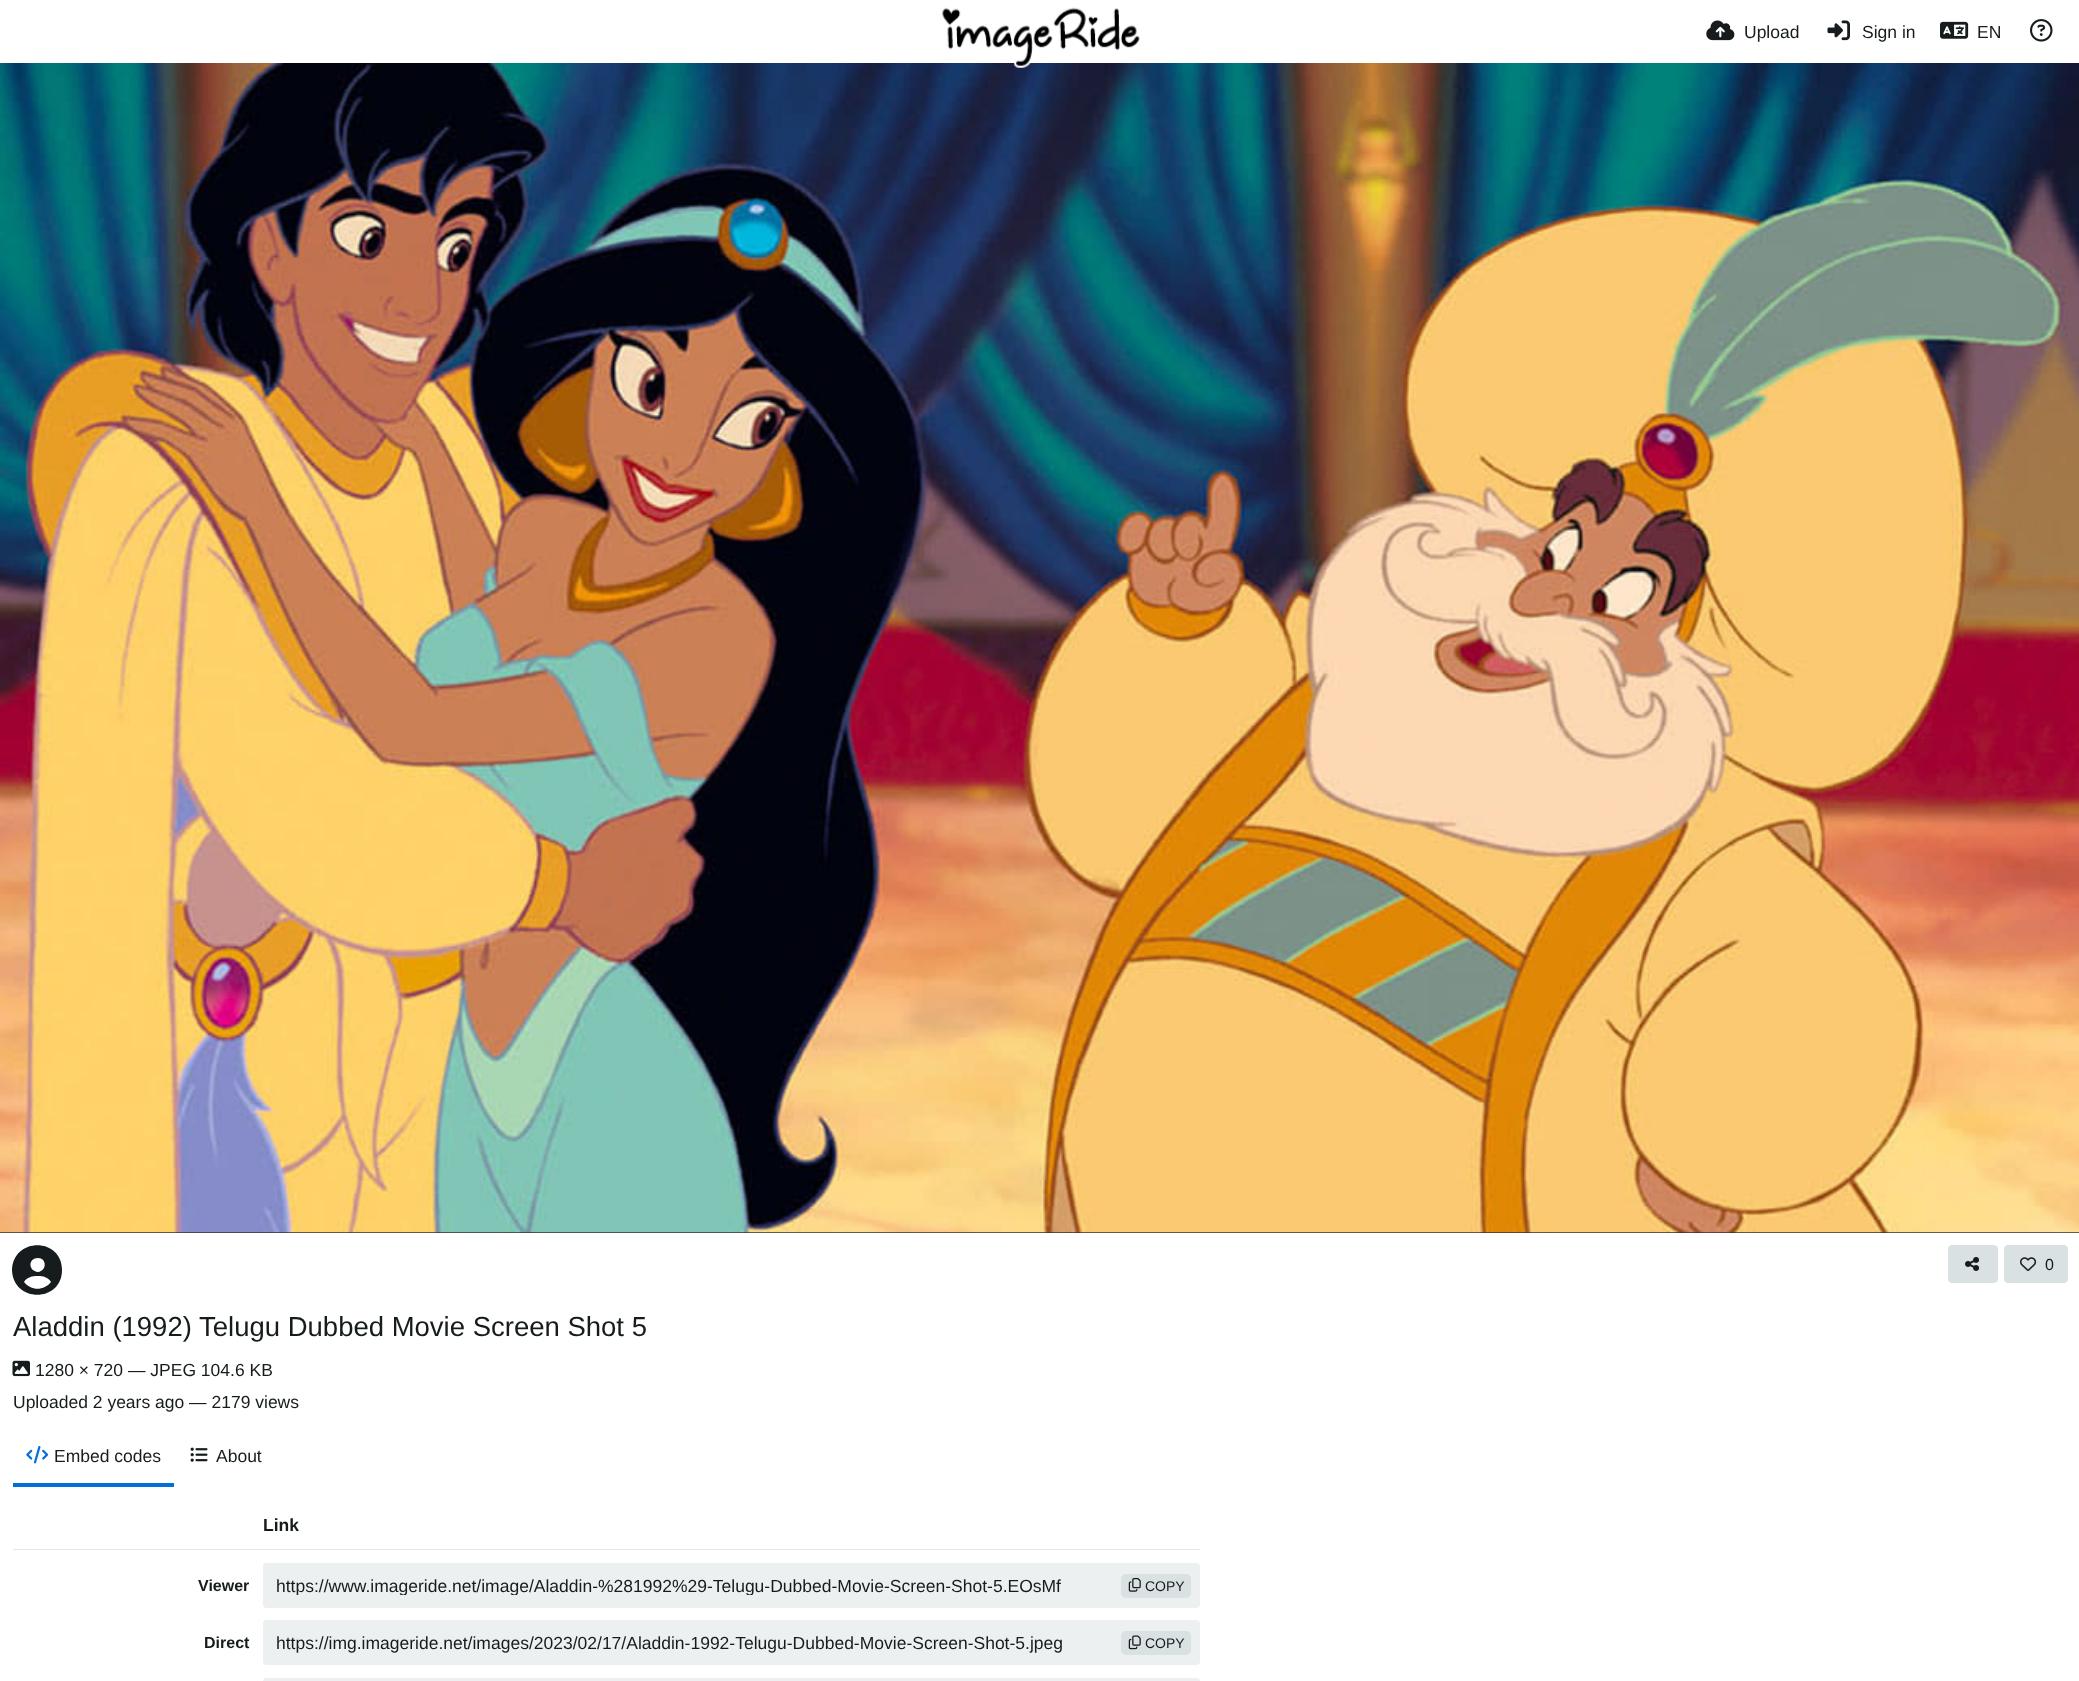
<!DOCTYPE html>
<meta charset="utf-8">
<style>body { margin: 0 } canvas { display: block }</style>
<canvas id="canvas" width="2079" height="1681"></canvas>
<img id="img1" src="images/6.png" hidden>
<img id="img2" src="images/1.png" hidden>
<img id="img3" src="images/2.png" hidden>
<img id="img4" src="images/3.png" hidden>
<img id="img5" src="images/4.png" hidden>
<img id="img6" src="images/5.png" hidden>
<img id="img7" src="images/7.png" hidden>
<img id="img8" src="images/8.png" hidden>
<img id="img9" src="images/9.png" hidden>
<img id="img10" src="images/10.png" hidden>
<img id="img11" src="images/11.png" hidden>
<img id="img12" src="images/12.png" hidden>
<img id="img13" src="images/13.png" hidden>
<script>
window.onload = function () {
    const canvas = document.getElementById('canvas');
    const context = canvas.getContext('2d');
    context.miterLimit = 4;
    context.fontKerning = 'normal';

    context.fillStyle = 'rgb(255, 255, 255)';
    context.fillRect(0, 0, 2079, 1681);
    context.fillStyle = 'rgb(50, 50, 50)';
    context.fillRect(0, 1232, 2079, 1);
    context.drawImage(document.getElementById('img1'), 0, 63, 2079, 1170);
    context.drawImage(document.getElementById('img2'), 942, 7, 198, 61);
    context.drawImage(document.getElementById('img3'), 1706, 20, 29, 21);
    context.drawImage(document.getElementById('img4'), 1827, 20, 23, 21);
    context.drawImage(document.getElementById('img5'), 1940, 21, 29, 18);
    context.drawImage(document.getElementById('img6'), 2030, 19, 23, 23);
    context.fillStyle = 'rgb(22, 28, 29)';
    context.beginPath();
    context.moveTo(51, 1282);
    context.bezierCurveTo(48, 1277, 43, 1276, 38, 1276);
    context.bezierCurveTo(32, 1276, 27, 1277, 24, 1282);
    context.bezierCurveTo(31, 1291, 44, 1291, 51, 1282);
    context.closePath();
    context.moveTo(12, 1270);
    context.bezierCurveTo(13, 1237, 62, 1237, 62, 1270);
    context.bezierCurveTo(62, 1303, 13, 1303, 12, 1270);
    context.closePath();
    context.moveTo(38, 1272);
    context.bezierCurveTo(47, 1271, 47, 1258, 38, 1258);
    context.bezierCurveTo(28, 1258, 28, 1271, 38, 1272);
    context.closePath();
    context.fill();
    context.fillStyle = 'rgb(217, 225, 226)';
    context.beginPath();
    context.roundRect(1948.5, 1245.5, 49, 37, 3.5);
    context.fill();
    context.strokeStyle = 'rgb(217, 225, 226)';
    context.stroke();
    context.drawImage(document.getElementById('img7'), 1965, 1257, 15, 14);
    context.beginPath();
    context.roundRect(2004.5, 1245.5, 63, 37, 3.5);
    context.fill();
    context.stroke();
    context.drawImage(document.getElementById('img8'), 2020, 1257, 17, 14);
    context.drawImage(document.getElementById('img9'), 12, 1360, 18, 17);
    context.fillStyle = 'rgb(0, 110, 219)';
    context.fillRect(13, 1483, 161, 4);
    context.drawImage(document.getElementById('img10'), 26, 1445, 23, 19);
    context.drawImage(document.getElementById('img11'), 190, 1447, 18, 15);
    context.fillStyle = 'rgb(226, 232, 233)';
    context.fillRect(13, 1549, 1187, 1);
    context.fillStyle = 'rgb(236, 240, 241)';
    context.beginPath();
    context.roundRect(263, 1563, 937, 45, 4);
    context.fill();
    context.fillStyle = 'rgb(217, 225, 226)';
    context.beginPath();
    context.roundRect(1121, 1574, 70, 24, 5);
    context.fill();
    context.drawImage(document.getElementById('img12'), 1128, 1578, 13, 14);
    context.fillStyle = 'rgb(236, 240, 241)';
    context.beginPath();
    context.roundRect(263, 1620, 937, 45, 4);
    context.fill();
    context.fillStyle = 'rgb(217, 225, 226)';
    context.beginPath();
    context.roundRect(1121, 1631, 70, 24, 5);
    context.fill();
    context.drawImage(document.getElementById('img13'), 1128, 1635, 13, 15);
    context.fillStyle = 'rgb(236, 240, 241)';
    context.beginPath();
    context.roundRect(263, 1678, 937, 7, 4);
    context.fill();
    context.font = '17.5px Liberation Sans';
    context.fillStyle = 'rgb(22, 28, 29)';
    context.fillText('Upload', 1744, 38);
    context.fillText('Sign in', 1862, 38);
    context.fillText('EN', 1977, 38);
    context.font = '16px Liberation Sans';
    context.fillText('0', 2045, 1270);
    context.font = '27.5px Liberation Sans';
    context.fillText('Aladdin (1992) Telugu Dubbed Movie Screen Shot 5', 13, 1336);
    context.font = '17.5px Liberation Sans';
    context.fillText('1280 × 720 — JPEG 104.6 KB', 35, 1376);
    context.fillText('Uploaded 2 years ago — 2179 views', 13, 1408);
    context.fillText('Embed codes', 54, 1462);
    context.fillText('About', 216, 1462);
    context.font = 'bold 17.5px Liberation Sans';
    context.fillText('Link', 263, 1531);
    context.font = 'bold 16px Liberation Sans';
    context.fillText('Viewer', 198, 1591);
    context.save();
    context.beginPath();
    context.rect(276, 1575, 910, 20);
    context.clip();
    context.font = '17.5px Liberation Sans';
    context.fillText('https://www.imageride.net/image/Aladdin-%281992%29-Telugu-Dubbed-Movie-Screen-Shot-5.EOsMf', 276, 1592);
    context.restore();
    context.font = '14px Liberation Sans';
    context.fillText('COPY', 1145, 1591);
    context.font = 'bold 16px Liberation Sans';
    context.fillText('Direct', 204, 1648);
    context.font = '17.5px Liberation Sans';
    context.fillText('https://img.imageride.net/images/2023/02/17/Aladdin-1992-Telugu-Dubbed-Movie-Screen-Shot-5.jpeg', 276, 1649);
    context.font = '14px Liberation Sans';
    context.fillText('COPY', 1145, 1648);
};
</script>
